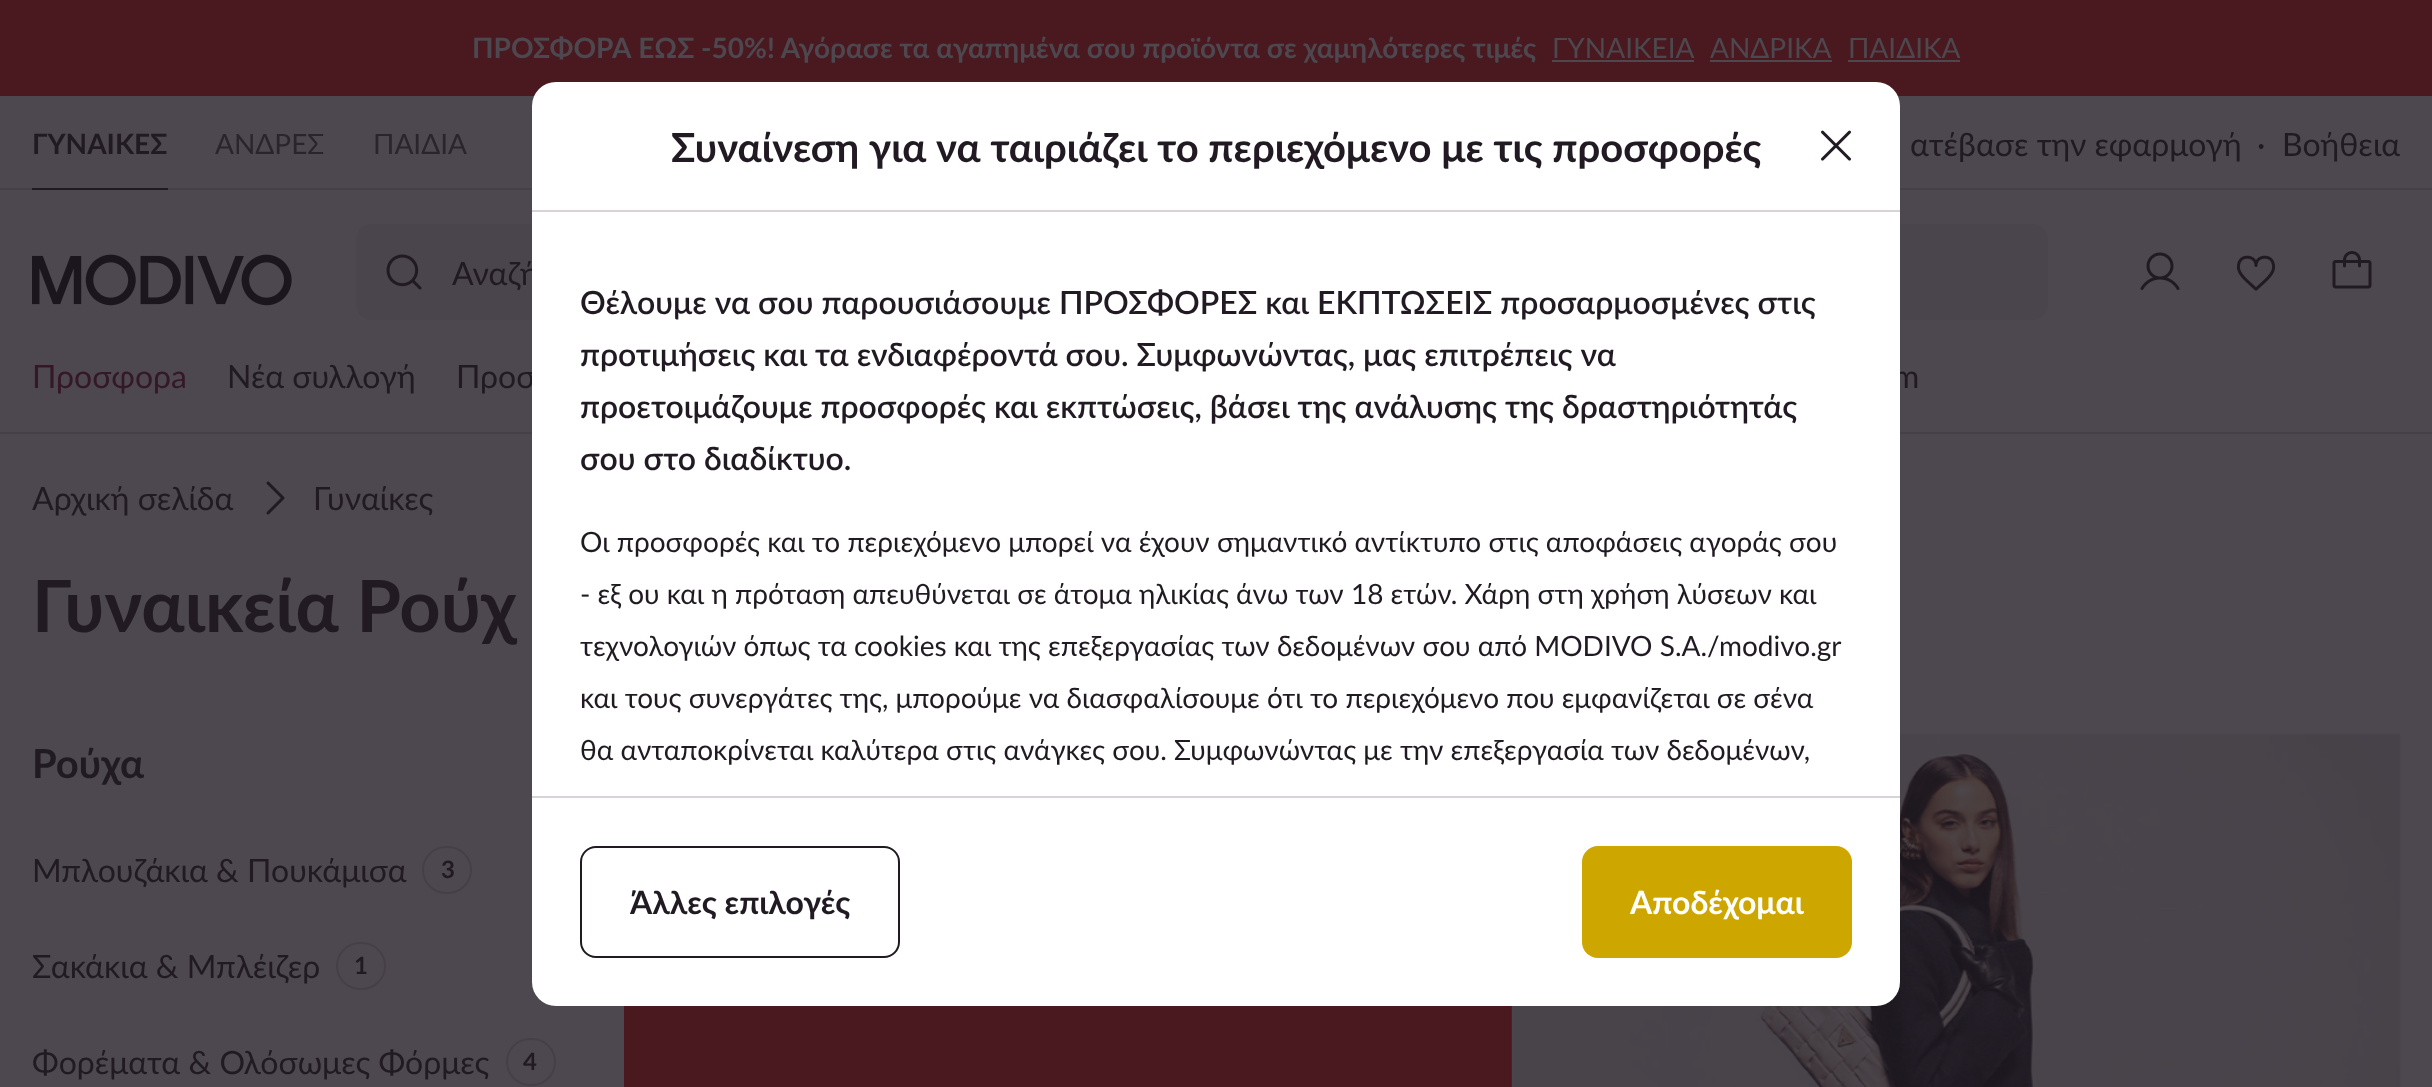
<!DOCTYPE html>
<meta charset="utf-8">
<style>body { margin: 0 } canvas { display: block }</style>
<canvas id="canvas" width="2432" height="1087"></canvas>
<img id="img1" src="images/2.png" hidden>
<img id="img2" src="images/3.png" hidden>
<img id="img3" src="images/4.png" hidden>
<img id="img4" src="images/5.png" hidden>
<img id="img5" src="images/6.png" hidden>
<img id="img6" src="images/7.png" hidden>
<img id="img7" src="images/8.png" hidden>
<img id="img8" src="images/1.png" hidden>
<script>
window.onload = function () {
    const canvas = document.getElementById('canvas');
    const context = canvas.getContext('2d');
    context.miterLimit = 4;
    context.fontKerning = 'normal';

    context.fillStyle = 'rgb(77, 72, 79)';
    context.fillRect(0, 0, 2432, 1087);
    context.fillStyle = 'rgb(74, 25, 32)';
    context.fillRect(0, 0, 2432, 96);
    context.fillStyle = 'rgb(77, 72, 79)';
    context.fillRect(1552, 60, 142, 2);
    context.fillRect(1710, 60, 122, 2);
    context.fillRect(1848, 60, 112, 2);
    context.fillStyle = 'rgb(70, 63, 71)';
    context.fillRect(0, 188, 2432, 2);
    context.fillStyle = 'rgb(33, 26, 35)';
    context.fillRect(32, 188, 136, 2);
    context.drawImage(document.getElementById('img1'), 32, 254, 260, 52);
    context.fillStyle = 'rgb(74, 68, 76)';
    context.beginPath();
    context.roundRect(356, 224, 1692, 96, 16);
    context.fill();
    context.drawImage(document.getElementById('img2'), 386, 254, 36, 36);
    context.drawImage(document.getElementById('img3'), 2140, 252, 40, 38);
    context.drawImage(document.getElementById('img4'), 2236, 255, 40, 36);
    context.drawImage(document.getElementById('img5'), 2332, 251, 40, 38);
    context.fillStyle = 'rgb(70, 63, 71)';
    context.fillRect(0, 432, 2432, 2);
    context.drawImage(document.getElementById('img6'), 266, 481, 19, 34);
    context.beginPath();
    context.roundRect(423, 847, 48, 46, 23);
    context.strokeStyle = 'rgb(70, 63, 71)';
    context.lineWidth = 2;
    context.stroke();
    context.beginPath();
    context.roundRect(337, 943, 48, 46, 23);
    context.stroke();
    context.beginPath();
    context.roundRect(507, 1039, 48, 46, 23);
    context.stroke();
    context.fillStyle = 'rgb(74, 25, 32)';
    context.fillRect(624, 1006, 888, 81);
    context.drawImage(document.getElementById('img7'), 1511, 733, 890, 354);
    context.font = 'bold 28px Lato';
    context.fillStyle = 'rgb(77, 72, 79)';
    context.fillText('ΠΡΟΣΦΟΡΑ ΈΩΣ -50%! Αγόρασε τα αγαπημένα σου προϊόντα σε χαμηλότερες τιμές', 472, 58);
    context.font = '28px Lato';
    context.fillText('ΓΥΝΑΙΚΕΙΑ', 1552, 58);
    context.fillText('ΑΝΔΡΙΚΑ', 1710, 58);
    context.fillText('ΠΑΙΔΙΚΑ', 1848, 58);
    context.font = 'bold 28px Lato';
    context.fillStyle = 'rgb(33, 26, 35)';
    context.fillText('ΓΥΝΑΊΚΕΣ', 32, 154);
    context.font = '28px Lato';
    context.fillStyle = 'rgb(43, 36, 45)';
    context.fillText('ΑΝΔΡΕΣ', 215, 154);
    context.fillText('ΠΑΙΔΙΑ', 373, 154);
    context.font = '32px Lato';
    context.fillStyle = 'rgb(33, 26, 35)';
    context.fillText('ατέβασε την εφαρμογή', 1910, 156);
    context.fillText('·', 2257, 156);
    context.fillText('Βοήθεια', 2282, 156);
    context.fillText('Αναζή', 452, 285);
    context.fillStyle = 'rgb(52, 23, 40)';
    context.fillText('Προσφορa', 32, 388);
    context.fillStyle = 'rgb(33, 26, 35)';
    context.fillText('Νέα συλλογή', 227, 388);
    context.fillText('Προσ', 456, 388);
    context.fillText('m', 1893, 388);
    context.fillStyle = 'rgb(255, 255, 255)';
    context.beginPath();
    context.roundRect(532, 82, 1368, 924, 24);
    context.fill();
    context.fillStyle = 'rgb(206, 166, 0)';
    context.beginPath();
    context.roundRect(1582, 846, 270, 112, 16);
    context.fill();
    context.font = 'bold 32px Lato';
    context.fillStyle = 'rgb(255, 255, 255)';
    context.fillText('Αποδέχομαι', 1630, 914);
    context.beginPath();
    context.roundRect(581, 847, 318, 110, 15);
    context.strokeStyle = 'rgb(33, 26, 35)';
    context.stroke();
    context.fillStyle = 'rgb(33, 26, 35)';
    context.fillText('Άλλες επιλογές', 630, 914);
    context.drawImage(document.getElementById('img8'), 1821, 130, 30, 31);
    context.font = '28px Lato';
    context.fillText('θα ανταποκρίνεται καλύτερα στις ανάγκες σου. Συμφωνώντας με την επεξεργασία των δεδομένων,', 580, 760);
    context.fillText('και τους συνεργάτες της, μπορούμε να διασφαλίσουμε ότι το περιεχόμενο που εμφανίζεται σε σένα', 580, 708);
    context.fillText('τεχνολογιών όπως τα cookies και της επεξεργασίας των δεδομένων σου από MODIVO S.A./modivo.gr', 580, 656);
    context.fillText('- εξ ου και η πρόταση απευθύνεται σε άτομα ηλικίας άνω των 18 ετών. Χάρη στη χρήση λύσεων και', 580, 604);
    context.fillText('Οι προσφορές και το περιεχόμενο μπορεί να έχουν σημαντικό αντίκτυπο στις αποφάσεις αγοράς σου', 580, 552);
    context.font = '600 32px Lato';
    context.fillText('σου στο διαδίκτυο.', 580, 470);
    context.fillText('προετοιμάζουμε προσφορές και εκπτώσεις, βάσει της ανάλυσης της δραστηριότητάς', 580, 418);
    context.fillText('προτιμήσεις και τα ενδιαφέροντά σου. Συμφωνώντας, μας επιτρέπεις να', 580, 366);
    context.fillText('Θέλουμε να σου παρουσιάσουμε ΠΡΟΣΦΟΡΕΣ και ΕΚΠΤΩΣΕΙΣ προσαρμοσμένες στις', 580, 314);
    context.font = 'bold 40px Lato';
    context.fillText('Συναίνεση για να ταιριάζει το περιεχόμενο με τις προσφορές', 671, 162);
    context.fillStyle = 'rgb(216, 211, 217)';
    context.fillRect(532, 796, 1368, 2);
    context.fillRect(532, 210, 1368, 2);
    context.font = '32px Lato';
    context.fillStyle = 'rgb(33, 26, 35)';
    context.fillText('Αρχική σελίδα', 32, 510);
    context.fillText('Γυναίκες', 313, 510);
    context.font = 'bold 72px Lato';
    context.fillText('Γυναικεία Ρούχ', 32, 632);
    context.font = 'bold 40px Lato';
    context.fillText('Ρούχα', 32, 778);
    context.font = '32px Lato';
    context.fillText('Μπλουζάκια & Πουκάμισα', 32, 882);
    context.font = 'bold 24px Lato';
    context.fillText('3', 441, 878);
    context.font = '32px Lato';
    context.fillText('Σακάκια & Μπλέιζερ', 32, 978);
    context.font = 'bold 24px Lato';
    context.fillText('1', 354, 974);
    context.font = '32px Lato';
    context.fillText('Φορέματα & Ολόσωμες Φόρμες', 32, 1074);
    context.font = 'bold 24px Lato';
    context.fillText('4', 523, 1070);
};
</script>
